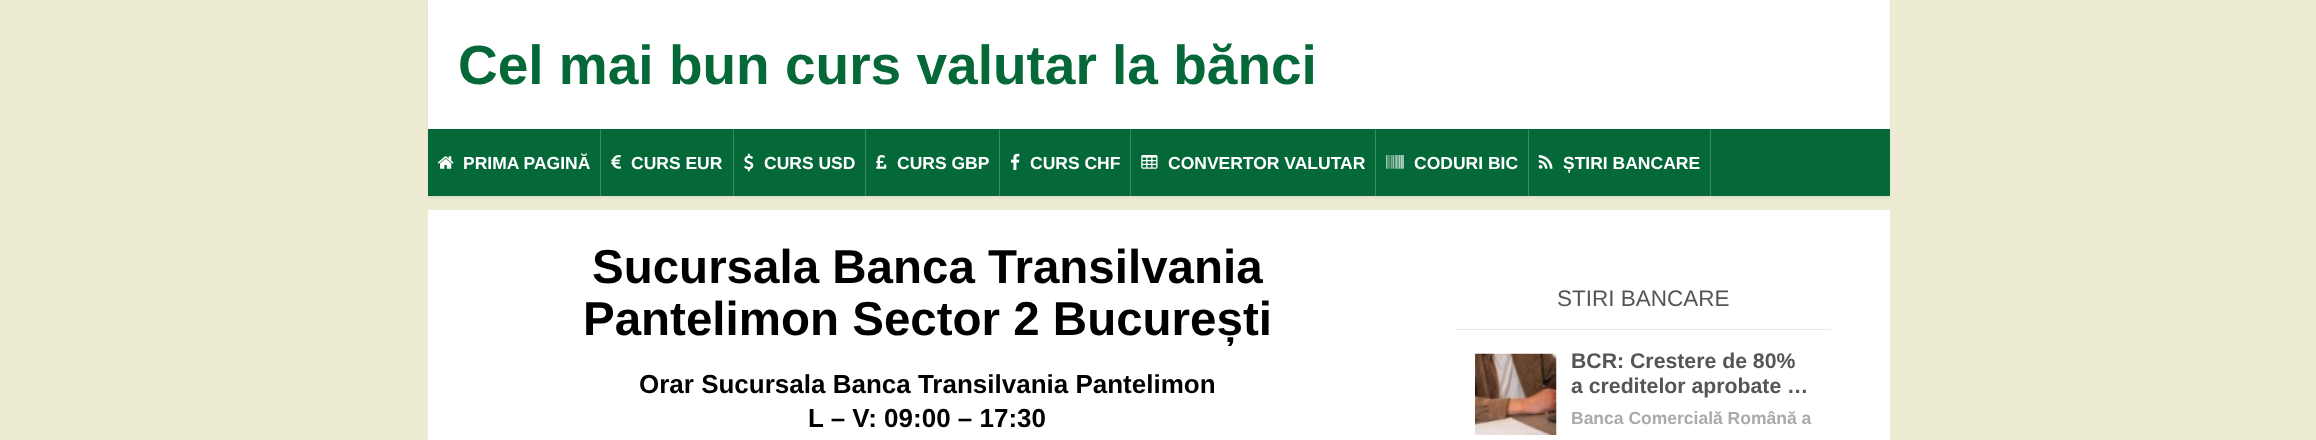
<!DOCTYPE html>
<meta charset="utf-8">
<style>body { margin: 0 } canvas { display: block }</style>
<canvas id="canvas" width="2316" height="440"></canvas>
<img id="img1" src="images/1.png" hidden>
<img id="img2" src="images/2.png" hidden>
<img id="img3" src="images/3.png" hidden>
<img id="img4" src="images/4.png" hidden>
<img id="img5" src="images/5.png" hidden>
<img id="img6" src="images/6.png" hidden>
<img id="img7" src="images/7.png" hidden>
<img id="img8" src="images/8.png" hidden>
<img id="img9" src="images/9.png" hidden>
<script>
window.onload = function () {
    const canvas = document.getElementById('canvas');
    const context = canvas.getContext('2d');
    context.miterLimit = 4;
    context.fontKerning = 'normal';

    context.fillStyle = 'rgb(237, 235, 210)';
    context.fillRect(0, 0, 2316, 440);
    context.fillStyle = 'rgba(0, 0, 0, 0.05)';
    context.filter = 'blur(1px)';
    context.beginPath();
    context.rect(428, 1, 1462, 197);
    context.fill();
    context.filter = 'none';
    context.fillStyle = 'rgb(255, 255, 255)';
    context.fillRect(428, 0, 1462, 129);
    context.fillStyle = 'rgb(5, 104, 57)';
    context.fillRect(428, 129, 1462, 67);
    context.fillStyle = 'rgb(60, 137, 101)';
    context.fillRect(600, 129, 1, 67);
    context.drawImage(document.getElementById('img1'), 437, 156, 17, 13);
    context.fillRect(733, 129, 1, 67);
    context.drawImage(document.getElementById('img2'), 611, 155, 11, 14);
    context.fillRect(865, 129, 1, 67);
    context.drawImage(document.getElementById('img3'), 744, 153, 10, 19);
    context.fillRect(999, 129, 1, 67);
    context.drawImage(document.getElementById('img4'), 876, 155, 11, 14);
    context.fillRect(1130, 129, 1, 67);
    context.drawImage(document.getElementById('img5'), 1010, 153, 10, 17);
    context.fillRect(1375, 129, 1, 67);
    context.drawImage(document.getElementById('img6'), 1141, 155, 17, 14);
    context.fillRect(1528, 129, 1, 67);
    context.drawImage(document.getElementById('img7'), 1386, 155, 18, 14);
    context.fillRect(1710, 129, 1, 67);
    context.drawImage(document.getElementById('img8'), 1538, 155, 15, 14);
    context.fillStyle = 'rgb(255, 255, 255)';
    context.fillRect(428, 210, 1462, 230);
    context.fillStyle = 'rgb(233, 233, 233)';
    context.fillRect(1456, 329, 375, 1);
    context.drawImage(document.getElementById('img9'), 1475, 353, 82, 82);
    context.font = 'bold 55px Liberation Sans';
    context.fillStyle = 'rgb(5, 104, 57)';
    context.fillText('Cel mai bun curs valutar la bănci', 458, 84);
    context.font = 'bold 17.5px Liberation Sans';
    context.fillStyle = 'rgb(255, 255, 255)';
    context.fillText('PRIMA PAGINĂ', 463, 169);
    context.fillText('CURS EUR', 631, 169);
    context.fillText('CURS USD', 764, 169);
    context.fillText('CURS GBP', 897, 169);
    context.fillText('CURS CHF', 1030, 169);
    context.fillText('CONVERTOR VALUTAR', 1168, 169);
    context.fillText('CODURI BIC', 1414, 169);
    context.fillText('ȘTIRI BANCARE', 1563, 169);
    context.font = 'bold 47.5px Liberation Sans';
    context.fillStyle = 'rgb(0, 0, 0)';
    context.fillText('Sucursala Banca Transilvania', 592, 283);
    context.fillText('Pantelimon Sector 2 București', 583, 335);
    context.font = 'bold 26px Liberation Sans';
    context.fillText('Orar Sucursala Banca Transilvania Pantelimon', 639, 393);
    context.fillText('L – V: 09:00 – 17:30', 808, 427);
    context.font = '22.5px Liberation Sans';
    context.fillStyle = 'rgb(85, 85, 85)';
    context.fillText('STIRI BANCARE', 1557, 306);
    context.font = 'bold 21.25px Liberation Sans';
    context.fillText('BCR: Crestere de 80%', 1571, 368);
    context.fillText('a creditelor aprobate …', 1571, 393);
    context.font = 'bold 17.5px Liberation Sans';
    context.fillStyle = 'rgb(170, 170, 170)';
    context.fillText('Banca Comercială Română a', 1571, 424);
};
</script>
